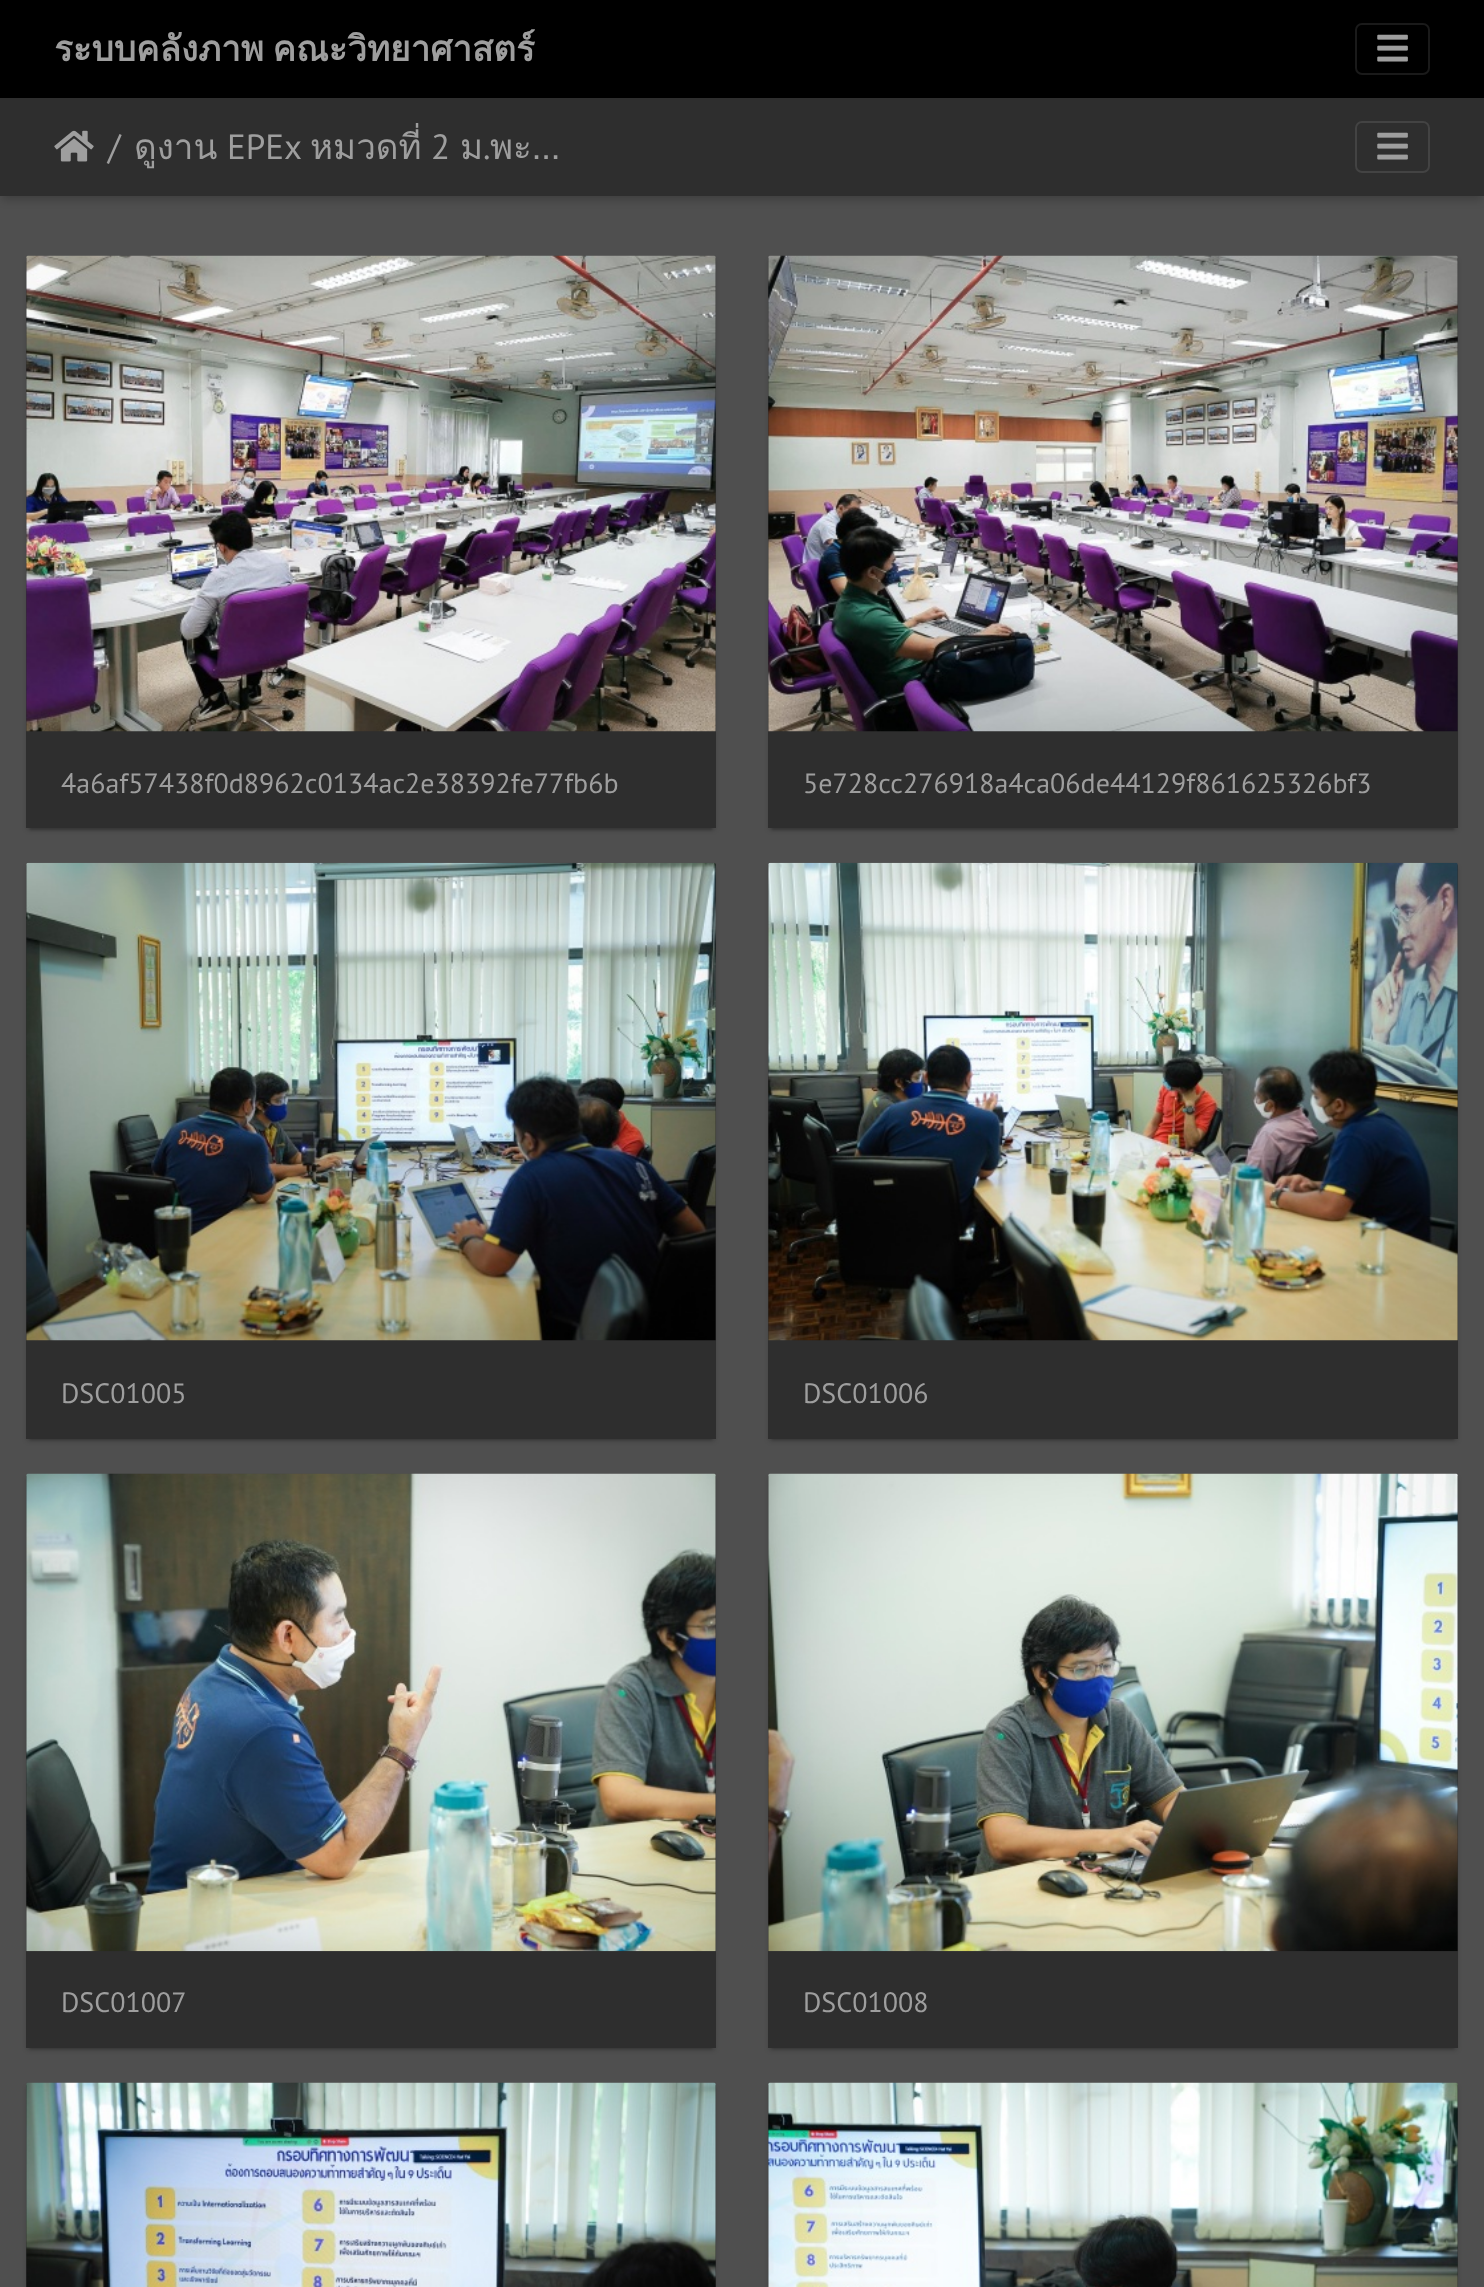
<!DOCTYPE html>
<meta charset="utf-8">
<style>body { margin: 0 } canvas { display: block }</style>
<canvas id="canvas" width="1484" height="2287"></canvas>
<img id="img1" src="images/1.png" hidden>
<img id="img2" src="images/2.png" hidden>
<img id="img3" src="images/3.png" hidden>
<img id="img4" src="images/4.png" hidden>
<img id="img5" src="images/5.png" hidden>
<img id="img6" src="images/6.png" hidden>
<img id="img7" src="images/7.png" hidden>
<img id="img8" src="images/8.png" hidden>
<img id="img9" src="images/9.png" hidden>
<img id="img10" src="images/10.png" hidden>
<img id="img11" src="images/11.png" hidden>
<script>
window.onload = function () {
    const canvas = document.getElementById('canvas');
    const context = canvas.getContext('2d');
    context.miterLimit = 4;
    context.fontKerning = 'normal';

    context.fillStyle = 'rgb(79, 79, 79)';
    context.fillRect(0, 0, 1484, 2287);
    context.fillStyle = 'rgba(0, 0, 0, 0.2)';
    context.filter = 'blur(4.5px)';
    context.beginPath();
    context.rect(2, 105, 1480, 95);
    context.fill();
    context.filter = 'none';
    context.fillStyle = 'rgb(0, 0, 0)';
    context.fillRect(0, 0, 1484, 98);
    context.beginPath();
    context.roundRect(1356, 24, 73, 50, 6);
    context.strokeStyle = 'rgb(26, 26, 26)';
    context.lineWidth = 2;
    context.stroke();
    context.drawImage(document.getElementById('img1'), 1377, 34, 31, 28);
    context.fillStyle = 'rgb(46, 46, 46)';
    context.fillRect(0, 98, 1484, 98);
    context.drawImage(document.getElementById('img2'), 54, 130, 40, 32);
    context.beginPath();
    context.roundRect(1356, 122, 73, 50, 6);
    context.strokeStyle = 'rgb(67, 67, 67)';
    context.stroke();
    context.drawImage(document.getElementById('img3'), 1377, 132, 31, 28);
    context.fillStyle = 'rgba(0, 0, 0, 0.2)';
    context.filter = 'blur(1px)';
    context.beginPath();
    context.rect(30, 264, 682, 566);
    context.fill();
    context.filter = 'none';
    context.fillStyle = 'rgba(0, 0, 0, 0.14)';
    context.filter = 'blur(2px)';
    context.beginPath();
    context.roundRect(26, 259, 690, 572, 4);
    context.fill();
    context.filter = 'none';
    context.fillStyle = 'rgb(46, 46, 46)';
    context.beginPath();
    context.roundRect(26, 256, 690, 572, 4);
    context.fill();
    context.drawImage(document.getElementById('img4'), 26, 255, 690, 477);
    context.fillRect(26, 825, 690, 3);
    context.fillStyle = 'rgba(0, 0, 0, 0.2)';
    context.filter = 'blur(1px)';
    context.beginPath();
    context.rect(772, 264, 682, 566);
    context.fill();
    context.filter = 'none';
    context.fillStyle = 'rgba(0, 0, 0, 0.14)';
    context.filter = 'blur(2px)';
    context.beginPath();
    context.roundRect(768, 259, 690, 572, 4);
    context.fill();
    context.filter = 'none';
    context.fillStyle = 'rgb(46, 46, 46)';
    context.beginPath();
    context.roundRect(768, 256, 690, 572, 4);
    context.fill();
    context.drawImage(document.getElementById('img5'), 768, 255, 690, 477);
    context.fillRect(768, 825, 690, 3);
    context.fillStyle = 'rgba(0, 0, 0, 0.2)';
    context.filter = 'blur(1px)';
    context.beginPath();
    context.rect(30, 872, 682, 568);
    context.fill();
    context.filter = 'none';
    context.fillStyle = 'rgba(0, 0, 0, 0.14)';
    context.filter = 'blur(2px)';
    context.beginPath();
    context.roundRect(26, 866, 690, 576, 4);
    context.fill();
    context.filter = 'none';
    context.fillStyle = 'rgb(46, 46, 46)';
    context.beginPath();
    context.roundRect(26, 863, 690, 576, 4);
    context.fill();
    context.drawImage(document.getElementById('img6'), 26, 862, 690, 479);
    context.fillRect(26, 1436, 690, 3);
    context.fillStyle = 'rgba(0, 0, 0, 0.2)';
    context.filter = 'blur(1px)';
    context.beginPath();
    context.rect(772, 872, 682, 568);
    context.fill();
    context.filter = 'none';
    context.fillStyle = 'rgba(0, 0, 0, 0.14)';
    context.filter = 'blur(2px)';
    context.beginPath();
    context.roundRect(768, 866, 690, 576, 4);
    context.fill();
    context.filter = 'none';
    context.fillStyle = 'rgb(46, 46, 46)';
    context.beginPath();
    context.roundRect(768, 863, 690, 576, 4);
    context.fill();
    context.drawImage(document.getElementById('img7'), 768, 862, 690, 479);
    context.fillRect(768, 1436, 690, 3);
    context.fillStyle = 'rgba(0, 0, 0, 0.2)';
    context.filter = 'blur(1px)';
    context.beginPath();
    context.rect(30, 1482, 682, 567);
    context.fill();
    context.filter = 'none';
    context.fillStyle = 'rgba(0, 0, 0, 0.14)';
    context.filter = 'blur(2px)';
    context.beginPath();
    context.roundRect(26, 1477, 690, 574, 4);
    context.fill();
    context.filter = 'none';
    context.fillStyle = 'rgb(46, 46, 46)';
    context.beginPath();
    context.roundRect(26, 1474, 690, 574, 4);
    context.fill();
    context.drawImage(document.getElementById('img8'), 26, 1473, 690, 479);
    context.fillRect(26, 2045, 690, 3);
    context.fillStyle = 'rgba(0, 0, 0, 0.2)';
    context.filter = 'blur(1px)';
    context.beginPath();
    context.rect(772, 1482, 682, 567);
    context.fill();
    context.filter = 'none';
    context.fillStyle = 'rgba(0, 0, 0, 0.14)';
    context.filter = 'blur(2px)';
    context.beginPath();
    context.roundRect(768, 1477, 690, 574, 4);
    context.fill();
    context.filter = 'none';
    context.fillStyle = 'rgb(46, 46, 46)';
    context.beginPath();
    context.roundRect(768, 1474, 690, 574, 4);
    context.fill();
    context.drawImage(document.getElementById('img9'), 768, 1473, 690, 479);
    context.fillRect(768, 2045, 690, 3);
    context.fillStyle = 'rgba(0, 0, 0, 0.14)';
    context.filter = 'blur(2px)';
    context.beginPath();
    context.roundRect(26, 2086, 690, 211, 4);
    context.fill();
    context.filter = 'none';
    context.fillStyle = 'rgb(46, 46, 46)';
    context.beginPath();
    context.roundRect(26, 2083, 690, 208, 4);
    context.fill();
    context.drawImage(document.getElementById('img10'), 26, 2082, 690, 205);
    context.fillStyle = 'rgba(0, 0, 0, 0.14)';
    context.filter = 'blur(2px)';
    context.beginPath();
    context.roundRect(768, 2086, 690, 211, 4);
    context.fill();
    context.filter = 'none';
    context.fillStyle = 'rgb(46, 46, 46)';
    context.beginPath();
    context.roundRect(768, 2083, 690, 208, 4);
    context.fill();
    context.drawImage(document.getElementById('img11'), 768, 2082, 690, 205);
    context.wordSpacing = '-3px';
    context.font = 'bold 35px Loma';
    context.fillStyle = 'rgb(158, 158, 158)';
    context.fillText('ระบบคลังภาพ คณะวิทยาศาสตร์', 54, 61);
    context.wordSpacing = '0px';
    context.font = '35px PT Sans';
    context.fillText('/', 108, 159);
    context.font = '35px Loma';
    context.fillText('ดูงาน', 134, 159);
    context.font = '35px PT Sans';
    context.fillText('EPEx', 227, 159);
    context.font = '35px Loma';
    context.fillText('หมวดที่', 310, 159);
    context.font = '35px PT Sans';
    context.fillText('2', 431, 159);
    context.font = '35px Loma';
    context.fillText('ม', 460, 159);
    context.font = '35px PT Sans';
    context.fillText('.', 483, 159);
    context.font = '35px Loma';
    context.fillText('พะ…', 490, 159);
    context.font = '28px PT Sans';
    context.fillText('4a6af57438f0d8962c0134ac2e38392fe77fb6b', 61, 793);
    context.fillText('5e728cc276918a4ca06de44129f861625326bf3', 803, 793);
    context.fillText('DSC01005', 61, 1403);
    context.fillText('DSC01006', 803, 1403);
    context.fillText('DSC01007', 61, 2012);
    context.fillText('DSC01008', 803, 2012);
};
</script>
